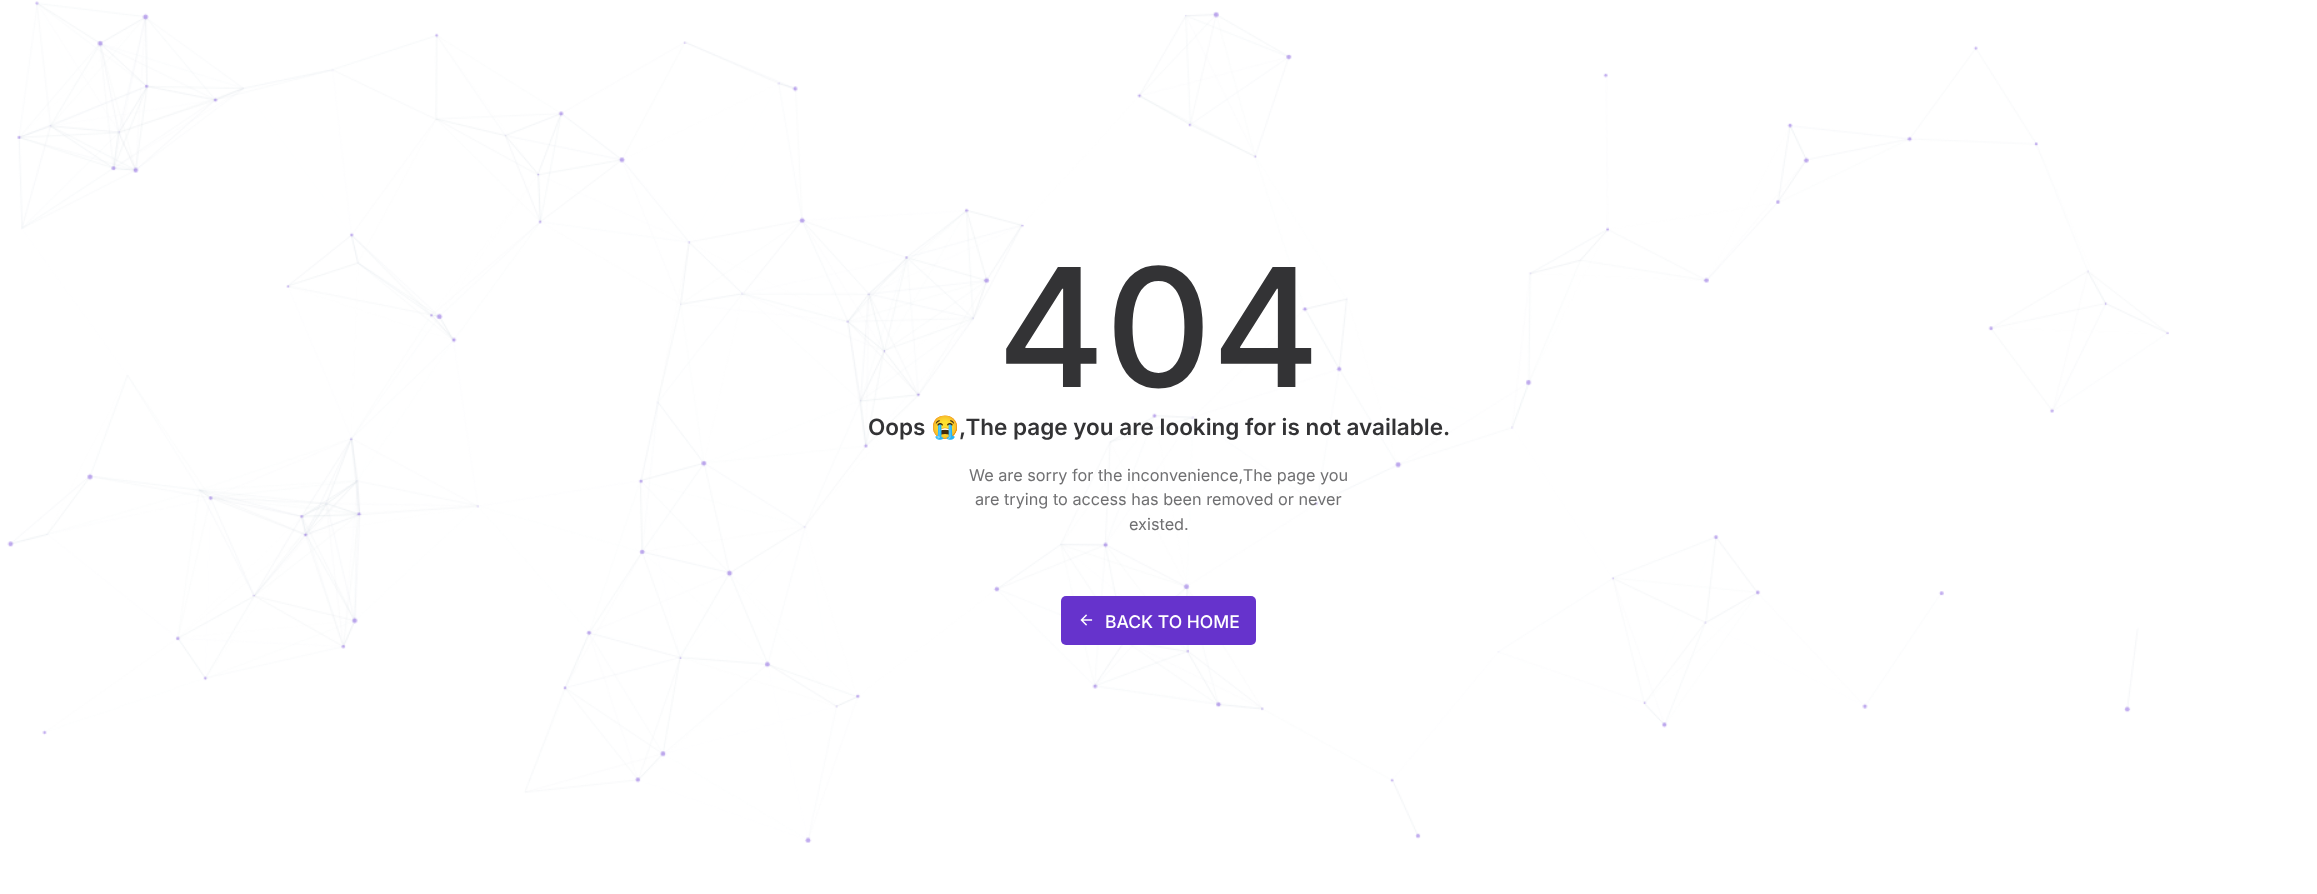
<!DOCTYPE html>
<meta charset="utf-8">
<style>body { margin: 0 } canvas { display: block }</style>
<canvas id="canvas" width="2317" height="894"></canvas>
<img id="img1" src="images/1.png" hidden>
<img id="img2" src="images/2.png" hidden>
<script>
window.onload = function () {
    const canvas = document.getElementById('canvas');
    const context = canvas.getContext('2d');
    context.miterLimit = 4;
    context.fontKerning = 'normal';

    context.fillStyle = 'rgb(255, 255, 255)';
    context.fillRect(0, 0, 2317, 894);
    context.drawImage(document.getElementById('img1'), 7, 1, 2162, 842);
    context.fillStyle = 'rgb(102, 51, 204)';
    context.beginPath();
    context.roundRect(1061, 596, 195, 49, 5);
    context.fill();
    context.drawImage(document.getElementById('img2'), 1080, 614, 13, 12);
    context.font = '500 165px Inter';
    context.fillStyle = 'rgb(51, 51, 53)';
    context.fillText('404', 997, 387);
    context.font = '600 22.5px Inter';
    context.fillText('Oops', 868, 435);
    context.font = 'bold 22.5px Noto Color Emoji';
    context.fillText('😭', 931, 435);
    context.font = '600 22.5px Inter';
    context.fillText(',The page you are looking for is not available.', 959, 435);
    context.font = '16.25px Inter';
    context.fillStyle = 'rgb(112, 112, 114)';
    context.fillText('We are sorry for the inconvenience,The page you', 969, 481);
    context.fillText('are trying to access has been removed or never', 975, 505);
    context.fillText('existed.', 1129, 530);
    context.font = '500 17.5px Inter';
    context.fillStyle = 'rgb(255, 255, 255)';
    context.fillText('BACK TO HOME', 1105, 628);
};
</script>
